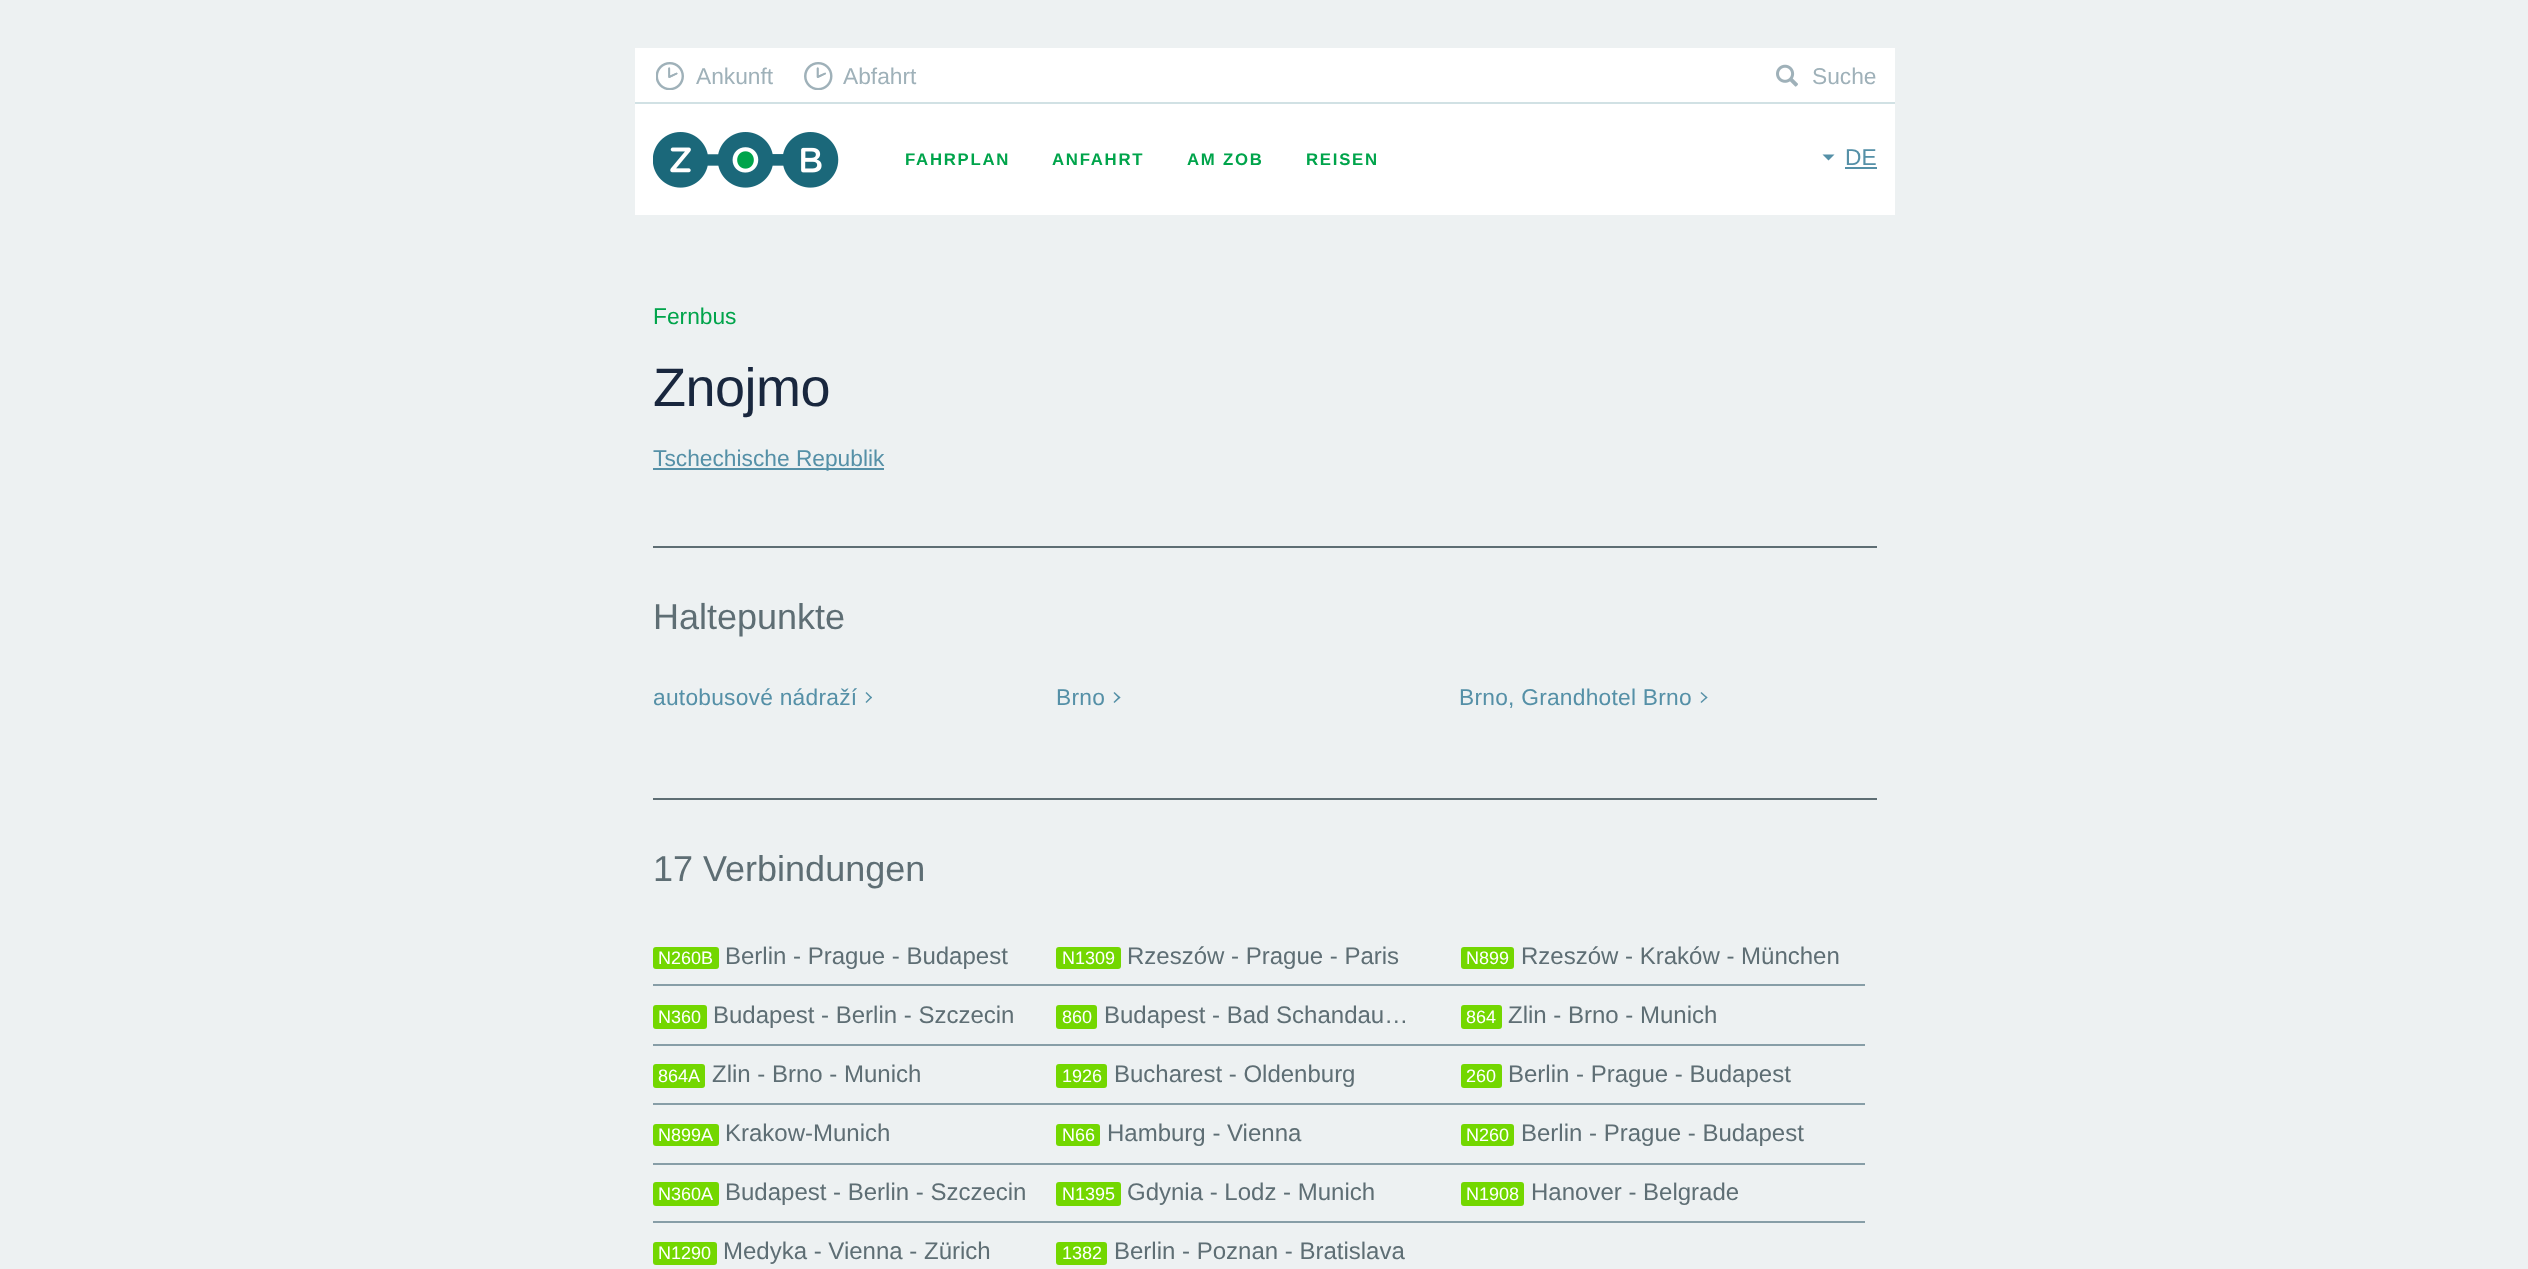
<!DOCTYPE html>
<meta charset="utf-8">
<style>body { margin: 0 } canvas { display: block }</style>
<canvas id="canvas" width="2528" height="1269"></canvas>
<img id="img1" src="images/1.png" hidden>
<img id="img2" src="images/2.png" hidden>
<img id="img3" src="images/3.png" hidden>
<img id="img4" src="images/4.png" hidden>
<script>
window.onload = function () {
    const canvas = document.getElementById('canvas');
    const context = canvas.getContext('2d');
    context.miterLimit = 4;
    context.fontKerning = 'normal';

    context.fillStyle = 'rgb(237, 241, 242)';
    context.fillRect(0, 0, 2528, 1269);
    context.fillStyle = 'rgb(255, 255, 255)';
    context.fillRect(635, 48, 1260, 167);
    context.fillStyle = 'rgb(209, 225, 228)';
    context.fillRect(635, 102, 1260, 2);
    context.drawImage(document.getElementById('img1'), 656, 62, 28, 28);
    context.drawImage(document.getElementById('img2'), 804, 62, 29, 28);
    context.drawImage(document.getElementById('img3'), 1776, 64, 22, 23);
    context.drawImage(document.getElementById('img4'), 653, 132, 186, 56);
    context.fillStyle = 'rgb(85, 144, 167)';
    context.beginPath();
    context.moveTo(1822.5, 154.5);
    context.lineTo(1834.5, 154.5);
    context.lineTo(1828.5, 160.5);
    context.closePath();
    context.fill();
    context.fillRect(1845, 167, 32, 2);
    context.fillRect(653, 468, 231, 2);
    context.fillStyle = 'rgb(94, 110, 116)';
    context.fillRect(653, 546, 1224, 2);
    context.fillStyle = 'rgb(85, 144, 167)';
    context.beginPath();
    context.moveTo(866.5, 692);
    context.lineTo(872, 697.5);
    context.lineTo(871, 698.5);
    context.lineTo(865.5, 693);
    context.closePath();
    context.fill();
    context.beginPath();
    context.moveTo(871, 696.5);
    context.lineTo(872, 697.5);
    context.lineTo(866.5, 703);
    context.lineTo(865.5, 702);
    context.closePath();
    context.fill();
    context.beginPath();
    context.moveTo(1114.5, 692);
    context.lineTo(1120.5, 697.5);
    context.lineTo(1119, 698.5);
    context.lineTo(1113.5, 693);
    context.closePath();
    context.fill();
    context.beginPath();
    context.moveTo(1119, 696.5);
    context.lineTo(1120.5, 697.5);
    context.lineTo(1114.5, 703);
    context.lineTo(1113.5, 702);
    context.closePath();
    context.fill();
    context.beginPath();
    context.moveTo(1701.5, 692);
    context.lineTo(1707.5, 697.5);
    context.lineTo(1706.5, 698.5);
    context.lineTo(1700.5, 693);
    context.closePath();
    context.fill();
    context.beginPath();
    context.moveTo(1706.5, 696.5);
    context.lineTo(1707.5, 697.5);
    context.lineTo(1701.5, 703);
    context.lineTo(1700.5, 702);
    context.closePath();
    context.fill();
    context.fillStyle = 'rgb(94, 110, 116)';
    context.fillRect(653, 798, 1224, 2);
    context.fillStyle = 'rgb(135, 158, 167)';
    context.fillRect(653, 984, 1212, 2);
    context.fillStyle = 'rgb(115, 215, 0)';
    context.beginPath();
    context.roundRect(653, 947, 66, 22, 3);
    context.fill();
    context.beginPath();
    context.roundRect(1056, 947, 65, 22, 3);
    context.fill();
    context.beginPath();
    context.roundRect(1461, 947, 53, 22, 3);
    context.fill();
    context.fillStyle = 'rgb(135, 158, 167)';
    context.fillRect(653, 1044, 1212, 2);
    context.fillStyle = 'rgb(115, 215, 0)';
    context.beginPath();
    context.roundRect(653, 1005, 54, 24, 3);
    context.fill();
    context.beginPath();
    context.roundRect(1056, 1005, 41, 24, 3);
    context.fill();
    context.beginPath();
    context.roundRect(1461, 1005, 41, 24, 3);
    context.fill();
    context.fillStyle = 'rgb(135, 158, 167)';
    context.fillRect(653, 1103, 1212, 2);
    context.fillStyle = 'rgb(115, 215, 0)';
    context.beginPath();
    context.roundRect(653, 1064, 52, 24, 3);
    context.fill();
    context.beginPath();
    context.roundRect(1056, 1064, 51, 24, 3);
    context.fill();
    context.beginPath();
    context.roundRect(1461, 1064, 41, 24, 3);
    context.fill();
    context.fillStyle = 'rgb(135, 158, 167)';
    context.fillRect(653, 1163, 1212, 2);
    context.fillStyle = 'rgb(115, 215, 0)';
    context.beginPath();
    context.roundRect(653, 1124, 66, 22, 3);
    context.fill();
    context.beginPath();
    context.roundRect(1056, 1124, 44, 22, 3);
    context.fill();
    context.beginPath();
    context.roundRect(1461, 1124, 53, 22, 3);
    context.fill();
    context.fillStyle = 'rgb(135, 158, 167)';
    context.fillRect(653, 1221, 1212, 2);
    context.fillStyle = 'rgb(115, 215, 0)';
    context.beginPath();
    context.roundRect(653, 1182, 66, 24, 3);
    context.fill();
    context.beginPath();
    context.roundRect(1056, 1182, 65, 24, 3);
    context.fill();
    context.beginPath();
    context.roundRect(1461, 1182, 63, 24, 3);
    context.fill();
    context.beginPath();
    context.roundRect(653, 1242, 64, 23, 3);
    context.fill();
    context.beginPath();
    context.roundRect(1056, 1242, 51, 23, 3);
    context.fill();
    context.font = '22.75px Liberation Sans';
    context.fillStyle = 'rgb(159, 177, 185)';
    context.fillText('Ankunft', 696, 84);
    context.fillText('Abfahrt', 843, 84);
    context.fillText('Suche', 1812, 84);
    context.letterSpacing = '1.75px';
    context.font = 'bold 16.75px Liberation Sans';
    context.fillStyle = 'rgb(0, 164, 75)';
    context.fillText('FAHRPLAN', 905, 165);
    context.fillText('ANFAHRT', 1052, 165);
    context.fillText('AM ZOB', 1187, 165);
    context.fillText('REISEN', 1306, 165);
    context.letterSpacing = '0px';
    context.font = '22.75px Liberation Sans';
    context.fillStyle = 'rgb(85, 144, 167)';
    context.fillText('DE', 1845, 165);
    context.fillStyle = 'rgb(0, 164, 75)';
    context.fillText('Fernbus', 653, 324);
    context.letterSpacing = '-0.5px';
    context.font = '54px Liberation Sans';
    context.fillStyle = 'rgb(25, 39, 62)';
    context.fillText('Znojmo', 653, 406);
    context.letterSpacing = '0px';
    context.font = '22.75px Liberation Sans';
    context.fillStyle = 'rgb(85, 144, 167)';
    context.fillText('Tschechische Republik', 653, 466);
    context.font = '36px Liberation Sans';
    context.fillStyle = 'rgb(94, 110, 116)';
    context.fillText('Haltepunkte', 653, 629);
    context.letterSpacing = '0.25px';
    context.font = '22.75px Liberation Sans';
    context.fillStyle = 'rgb(85, 144, 167)';
    context.fillText('autobusové nádraží', 653, 705);
    context.fillText('Brno', 1056, 705);
    context.fillText('Brno, Grandhotel Brno', 1459, 705);
    context.letterSpacing = '0px';
    context.font = '36px Liberation Sans';
    context.fillStyle = 'rgb(94, 110, 116)';
    context.fillText('17 Verbindungen', 653, 881);
    context.font = '18px Liberation Sans';
    context.fillStyle = 'rgb(255, 255, 255)';
    context.fillText('N260B', 658, 964);
    context.font = '24px Liberation Sans';
    context.fillStyle = 'rgb(94, 110, 116)';
    context.fillText('Berlin - Prague - Budapest', 725, 964);
    context.font = '18px Liberation Sans';
    context.fillStyle = 'rgb(255, 255, 255)';
    context.fillText('N1309', 1062, 964);
    context.font = '24px Liberation Sans';
    context.fillStyle = 'rgb(94, 110, 116)';
    context.fillText('Rzeszów - Prague - Paris', 1127, 964);
    context.font = '18px Liberation Sans';
    context.fillStyle = 'rgb(255, 255, 255)';
    context.fillText('N899', 1466, 964);
    context.font = '24px Liberation Sans';
    context.fillStyle = 'rgb(94, 110, 116)';
    context.fillText('Rzeszów - Kraków - München', 1521, 964);
    context.font = '18px Liberation Sans';
    context.fillStyle = 'rgb(255, 255, 255)';
    context.fillText('N360', 658, 1023);
    context.font = '24px Liberation Sans';
    context.fillStyle = 'rgb(94, 110, 116)';
    context.fillText('Budapest - Berlin - Szczecin', 713, 1023);
    context.font = '18px Liberation Sans';
    context.fillStyle = 'rgb(255, 255, 255)';
    context.fillText('860', 1062, 1023);
    context.font = '24px Liberation Sans';
    context.fillStyle = 'rgb(94, 110, 116)';
    context.fillText('Budapest - Bad Schandau…', 1104, 1023);
    context.font = '18px Liberation Sans';
    context.fillStyle = 'rgb(255, 255, 255)';
    context.fillText('864', 1466, 1023);
    context.font = '24px Liberation Sans';
    context.fillStyle = 'rgb(94, 110, 116)';
    context.fillText('Zlin - Brno - Munich', 1508, 1023);
    context.font = '18px Liberation Sans';
    context.fillStyle = 'rgb(255, 255, 255)';
    context.fillText('864A', 658, 1082);
    context.font = '24px Liberation Sans';
    context.fillStyle = 'rgb(94, 110, 116)';
    context.fillText('Zlin - Brno - Munich', 712, 1082);
    context.font = '18px Liberation Sans';
    context.fillStyle = 'rgb(255, 255, 255)';
    context.fillText('1926', 1062, 1082);
    context.font = '24px Liberation Sans';
    context.fillStyle = 'rgb(94, 110, 116)';
    context.fillText('Bucharest - Oldenburg', 1114, 1082);
    context.font = '18px Liberation Sans';
    context.fillStyle = 'rgb(255, 255, 255)';
    context.fillText('260', 1466, 1082);
    context.font = '24px Liberation Sans';
    context.fillStyle = 'rgb(94, 110, 116)';
    context.fillText('Berlin - Prague - Budapest', 1508, 1082);
    context.font = '18px Liberation Sans';
    context.fillStyle = 'rgb(255, 255, 255)';
    context.fillText('N899A', 658, 1141);
    context.font = '24px Liberation Sans';
    context.fillStyle = 'rgb(94, 110, 116)';
    context.fillText('Krakow-Munich', 725, 1141);
    context.font = '18px Liberation Sans';
    context.fillStyle = 'rgb(255, 255, 255)';
    context.fillText('N66', 1062, 1141);
    context.font = '24px Liberation Sans';
    context.fillStyle = 'rgb(94, 110, 116)';
    context.fillText('Hamburg - Vienna', 1107, 1141);
    context.font = '18px Liberation Sans';
    context.fillStyle = 'rgb(255, 255, 255)';
    context.fillText('N260', 1466, 1141);
    context.font = '24px Liberation Sans';
    context.fillStyle = 'rgb(94, 110, 116)';
    context.fillText('Berlin - Prague - Budapest', 1521, 1141);
    context.font = '18px Liberation Sans';
    context.fillStyle = 'rgb(255, 255, 255)';
    context.fillText('N360A', 658, 1200);
    context.font = '24px Liberation Sans';
    context.fillStyle = 'rgb(94, 110, 116)';
    context.fillText('Budapest - Berlin - Szczecin', 725, 1200);
    context.font = '18px Liberation Sans';
    context.fillStyle = 'rgb(255, 255, 255)';
    context.fillText('N1395', 1062, 1200);
    context.font = '24px Liberation Sans';
    context.fillStyle = 'rgb(94, 110, 116)';
    context.fillText('Gdynia - Lodz - Munich', 1127, 1200);
    context.font = '18px Liberation Sans';
    context.fillStyle = 'rgb(255, 255, 255)';
    context.fillText('N1908', 1466, 1200);
    context.font = '24px Liberation Sans';
    context.fillStyle = 'rgb(94, 110, 116)';
    context.fillText('Hanover - Belgrade', 1531, 1200);
    context.font = '18px Liberation Sans';
    context.fillStyle = 'rgb(255, 255, 255)';
    context.fillText('N1290', 658, 1259);
    context.font = '24px Liberation Sans';
    context.fillStyle = 'rgb(94, 110, 116)';
    context.fillText('Medyka - Vienna - Zürich', 723, 1259);
    context.font = '18px Liberation Sans';
    context.fillStyle = 'rgb(255, 255, 255)';
    context.fillText('1382', 1062, 1259);
    context.font = '24px Liberation Sans';
    context.fillStyle = 'rgb(94, 110, 116)';
    context.fillText('Berlin - Poznan - Bratislava', 1114, 1259);
};
</script>
